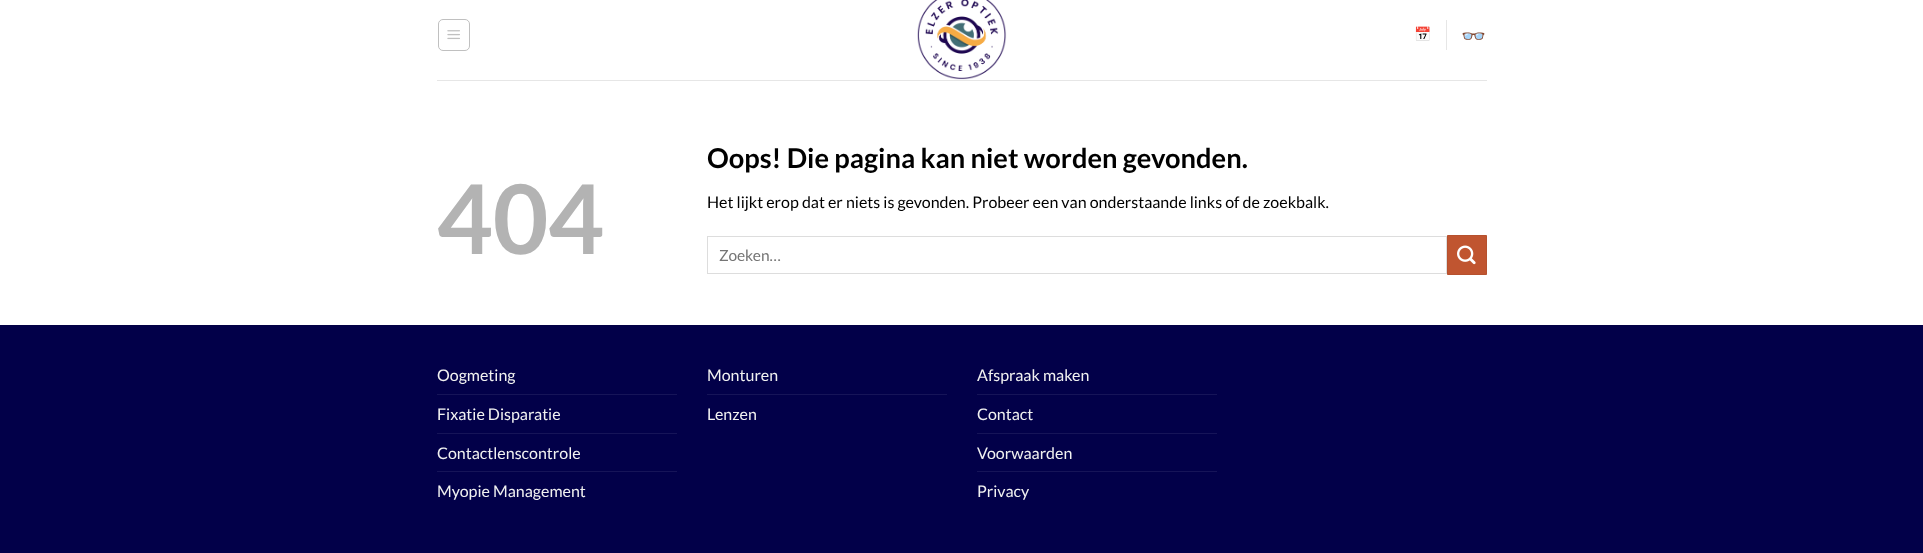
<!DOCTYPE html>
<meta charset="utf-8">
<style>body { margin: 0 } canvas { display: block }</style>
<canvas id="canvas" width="1923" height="553"></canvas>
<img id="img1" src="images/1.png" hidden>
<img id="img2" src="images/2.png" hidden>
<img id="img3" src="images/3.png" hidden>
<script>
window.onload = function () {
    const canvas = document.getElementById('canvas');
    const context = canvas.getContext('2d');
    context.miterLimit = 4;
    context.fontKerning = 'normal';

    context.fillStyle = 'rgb(255, 255, 255)';
    context.fillRect(0, 0, 1923, 553);
    context.beginPath();
    context.roundRect(438.5, 19.5, 31, 31, 4.5);
    context.strokeStyle = 'rgb(192, 192, 192)';
    context.stroke();
    context.drawImage(document.getElementById('img1'), 447, 30, 13, 10);
    context.drawImage(document.getElementById('img2'), 917, 0, 90, 80);
    context.fillStyle = 'rgb(230, 230, 230)';
    context.fillRect(1446, 20, 1, 30);
    context.fillRect(437, 80, 1050, 1);
    context.strokeStyle = 'rgb(221, 221, 221)';
    context.strokeRect(707.5, 236.5, 739, 37);
    context.fillStyle = 'rgb(192, 85, 48)';
    context.beginPath();
    context.rect(1447.5, 235.5, 39, 39);
    context.fill();
    context.strokeStyle = 'rgb(182, 81, 46)';
    context.stroke();
    context.drawImage(document.getElementById('img3'), 1457, 245, 19, 20);
    context.fillStyle = 'rgb(2, 0, 73)';
    context.fillRect(0, 326, 1923, 227);
    context.fillStyle = 'rgb(2, 0, 69)';
    context.fillRect(0, 325, 1923, 1);
    context.fillStyle = 'rgb(22, 20, 88)';
    context.fillRect(437, 394, 240, 1);
    context.fillRect(437, 433, 240, 1);
    context.fillRect(437, 471, 240, 1);
    context.fillRect(707, 394, 240, 1);
    context.fillRect(977, 394, 240, 1);
    context.fillRect(977, 433, 240, 1);
    context.fillRect(977, 471, 240, 1);
    context.font = '14px Noto Color Emoji';
    context.fillStyle = 'rgb(51, 72, 98)';
    context.fillText('📅', 1414, 39);
    context.font = 'bold 20px Noto Color Emoji';
    context.fillStyle = 'rgb(0, 0, 0)';
    context.fillText('👓', 1461, 43);
    context.font = 'bold 96px Lato';
    context.fillStyle = 'rgb(179, 179, 179)';
    context.fillText('404', 437, 254);
    context.font = 'bold 27.25px Lato';
    context.fillStyle = 'rgb(0, 0, 0)';
    context.fillText('Oops! Die pagina kan niet worden gevonden.', 707, 168);
    context.font = '16px Lato';
    context.fillText('Het lijkt erop dat er niets is gevonden. Probeer een van onderstaande links of de zoekbalk.', 707, 208);
    context.font = '15.5px Lato';
    context.fillStyle = 'rgb(117, 117, 117)';
    context.fillText('Zoeken…', 719, 261);
    context.font = '16px Lato';
    context.fillStyle = 'rgb(241, 241, 241)';
    context.fillText('Oogmeting', 437, 381);
    context.fillText('Fixatie Disparatie', 437, 420);
    context.fillText('Contactlenscontrole', 437, 459);
    context.fillText('Myopie Management', 437, 497);
    context.fillText('Monturen', 707, 381);
    context.fillText('Lenzen', 707, 420);
    context.fillText('Afspraak maken', 977, 381);
    context.fillText('Contact', 977, 420);
    context.fillText('Voorwaarden', 977, 459);
    context.fillText('Privacy', 977, 497);
};
</script>
